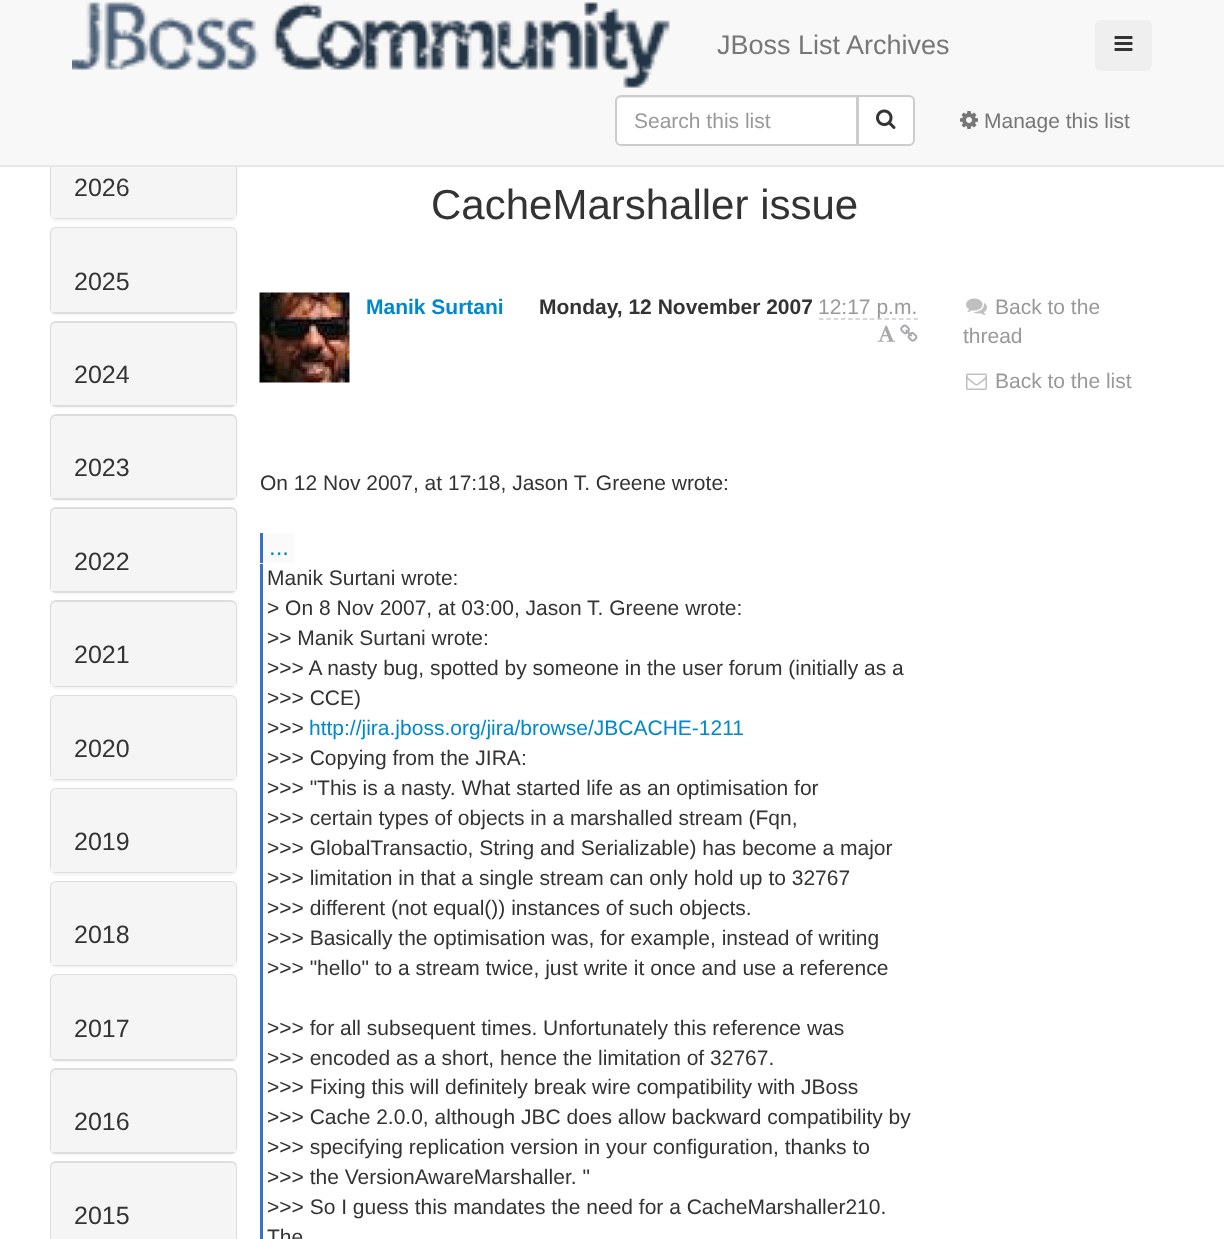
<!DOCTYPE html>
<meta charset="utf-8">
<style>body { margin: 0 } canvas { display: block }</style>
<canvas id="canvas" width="1224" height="1239"></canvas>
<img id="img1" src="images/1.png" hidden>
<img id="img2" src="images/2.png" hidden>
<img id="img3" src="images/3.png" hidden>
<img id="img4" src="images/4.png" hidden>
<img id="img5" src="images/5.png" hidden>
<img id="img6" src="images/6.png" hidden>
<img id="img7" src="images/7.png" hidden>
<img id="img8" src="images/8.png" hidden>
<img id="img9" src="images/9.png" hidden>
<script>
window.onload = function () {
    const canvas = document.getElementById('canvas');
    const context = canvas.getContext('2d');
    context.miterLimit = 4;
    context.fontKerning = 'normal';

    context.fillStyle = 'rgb(255, 255, 255)';
    context.fillRect(0, 0, 1224, 1239);
    context.fillStyle = 'rgba(0, 0, 0, 0.05)';
    context.filter = 'blur(1px)';
    context.beginPath();
    context.roundRect(50, 135, 187, 86, 6);
    context.fill();
    context.filter = 'none';
    context.beginPath();
    context.roundRect(51, 135, 185, 83, 5);
    context.strokeStyle = 'rgb(221, 221, 221)';
    context.lineWidth = 2;
    context.stroke();
    context.fillStyle = 'rgb(248, 248, 248)';
    context.fillRect(0, 0, 1224, 165);
    context.fillStyle = 'rgb(231, 231, 231)';
    context.fillRect(0, 165, 1224, 2);
    context.drawImage(document.getElementById('img1'), 72, 2, 598, 86);
    context.fillStyle = 'rgb(239, 239, 239)';
    context.beginPath();
    context.roundRect(1095, 20, 57, 51, 6);
    context.fill();
    context.drawImage(document.getElementById('img2'), 1114, 36, 19, 15);
    context.fillStyle = 'rgb(255, 255, 255)';
    context.beginPath();
    context.roundRect(615, 95, 243, 51, [6, 0, 0, 6]);
    context.fill();
    context.fillStyle = 'rgb(236, 236, 236)';
    context.beginPath();
    context.moveTo(621, 98);
    context.lineTo(856, 98);
    context.lineTo(856, 144);
    context.lineTo(857, 144);
    context.lineTo(857, 96);
    context.lineTo(622, 96);
    context.bezierCurveTo(620, 96, 618, 98, 617, 100);
    context.bezierCurveTo(618, 99, 620, 98, 621, 98);
    context.closePath();
    context.fill();
    context.beginPath();
    context.roundRect(616, 96, 241, 49, [5, 0, 0, 5]);
    context.strokeStyle = 'rgb(204, 204, 204)';
    context.stroke();
    context.fillStyle = 'rgb(255, 255, 255)';
    context.beginPath();
    context.roundRect(858, 96, 56, 49, [0, 5, 5, 0]);
    context.fill();
    context.stroke();
    context.drawImage(document.getElementById('img3'), 876, 109, 20, 20);
    context.drawImage(document.getElementById('img4'), 960, 111, 18, 18);
    context.fillStyle = 'rgb(245, 245, 245)';
    context.fillRect(51, 167, 185, 51);
    context.fillStyle = 'rgba(0, 0, 0, 0.05)';
    context.filter = 'blur(1px)';
    context.beginPath();
    context.roundRect(50, 228, 187, 87, 6);
    context.fill();
    context.filter = 'none';
    context.beginPath();
    context.roundRect(51, 228, 185, 85, 5);
    context.strokeStyle = 'rgb(221, 221, 221)';
    context.stroke();
    context.fillStyle = 'rgb(245, 245, 245)';
    context.beginPath();
    context.roundRect(51, 228, 185, 84, [5, 5, 0, 0]);
    context.fill();
    context.fillStyle = 'rgba(0, 0, 0, 0.05)';
    context.filter = 'blur(1px)';
    context.beginPath();
    context.roundRect(50, 323, 187, 85, 6);
    context.fill();
    context.filter = 'none';
    context.beginPath();
    context.roundRect(51, 322, 185, 84, 5);
    context.stroke();
    context.fillStyle = 'rgb(245, 245, 245)';
    context.beginPath();
    context.roundRect(51, 323, 185, 82, [5, 5, 0, 0]);
    context.fill();
    context.fillStyle = 'rgba(0, 0, 0, 0.05)';
    context.filter = 'blur(1px)';
    context.beginPath();
    context.roundRect(50, 416, 187, 85, 6);
    context.fill();
    context.filter = 'none';
    context.beginPath();
    context.roundRect(51, 415, 185, 84, 5);
    context.stroke();
    context.fillStyle = 'rgb(245, 245, 245)';
    context.beginPath();
    context.roundRect(51, 416, 185, 82, [5, 5, 0, 0]);
    context.fill();
    context.fillStyle = 'rgba(0, 0, 0, 0.05)';
    context.filter = 'blur(1px)';
    context.beginPath();
    context.roundRect(50, 509, 187, 85, 6);
    context.fill();
    context.filter = 'none';
    context.beginPath();
    context.roundRect(51, 508, 185, 84, 5);
    context.stroke();
    context.fillStyle = 'rgb(245, 245, 245)';
    context.beginPath();
    context.roundRect(51, 509, 185, 82, [5, 5, 0, 0]);
    context.fill();
    context.fillStyle = 'rgba(0, 0, 0, 0.05)';
    context.filter = 'blur(1px)';
    context.beginPath();
    context.roundRect(50, 602, 187, 87, 6);
    context.fill();
    context.filter = 'none';
    context.beginPath();
    context.roundRect(51, 601, 185, 85, 5);
    context.stroke();
    context.fillStyle = 'rgb(245, 245, 245)';
    context.beginPath();
    context.roundRect(51, 602, 185, 84, [5, 5, 0, 0]);
    context.fill();
    context.fillStyle = 'rgba(0, 0, 0, 0.05)';
    context.filter = 'blur(1px)';
    context.beginPath();
    context.roundRect(50, 696, 187, 86, 6);
    context.fill();
    context.filter = 'none';
    context.beginPath();
    context.roundRect(51, 696, 185, 83, 5);
    context.stroke();
    context.fillStyle = 'rgb(245, 245, 245)';
    context.beginPath();
    context.roundRect(51, 696, 185, 83, [5, 5, 0, 0]);
    context.fill();
    context.fillStyle = 'rgba(0, 0, 0, 0.05)';
    context.filter = 'blur(1px)';
    context.beginPath();
    context.roundRect(50, 789, 187, 86, 6);
    context.fill();
    context.filter = 'none';
    context.beginPath();
    context.roundRect(51, 789, 185, 83, 5);
    context.stroke();
    context.fillStyle = 'rgb(245, 245, 245)';
    context.beginPath();
    context.roundRect(51, 789, 185, 83, [5, 5, 0, 0]);
    context.fill();
    context.fillStyle = 'rgba(0, 0, 0, 0.05)';
    context.filter = 'blur(1px)';
    context.beginPath();
    context.roundRect(50, 882, 187, 86, 6);
    context.fill();
    context.filter = 'none';
    context.beginPath();
    context.roundRect(51, 882, 185, 83, 5);
    context.stroke();
    context.fillStyle = 'rgb(245, 245, 245)';
    context.beginPath();
    context.roundRect(51, 882, 185, 83, [5, 5, 0, 0]);
    context.fill();
    context.fillStyle = 'rgba(0, 0, 0, 0.05)';
    context.filter = 'blur(1px)';
    context.beginPath();
    context.roundRect(50, 975, 187, 87, 6);
    context.fill();
    context.filter = 'none';
    context.beginPath();
    context.roundRect(51, 975, 185, 85, 5);
    context.stroke();
    context.fillStyle = 'rgb(245, 245, 245)';
    context.beginPath();
    context.roundRect(51, 975, 185, 84, [5, 5, 0, 0]);
    context.fill();
    context.fillStyle = 'rgba(0, 0, 0, 0.05)';
    context.filter = 'blur(1px)';
    context.beginPath();
    context.roundRect(50, 1070, 187, 85, 6);
    context.fill();
    context.filter = 'none';
    context.beginPath();
    context.roundRect(51, 1069, 185, 84, 5);
    context.stroke();
    context.fillStyle = 'rgb(245, 245, 245)';
    context.beginPath();
    context.roundRect(51, 1070, 185, 82, [5, 5, 0, 0]);
    context.fill();
    context.beginPath();
    context.roundRect(51, 1162, 185, 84, 5);
    context.stroke();
    context.beginPath();
    context.moveTo(56, 1163);
    context.lineTo(231, 1163);
    context.bezierCurveTo(234, 1163, 236, 1165, 236, 1168);
    context.lineTo(236, 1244);
    context.lineTo(51, 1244);
    context.lineTo(51, 1168);
    context.bezierCurveTo(51, 1165, 53, 1163, 56, 1163);
    context.closePath();
    context.fill();
    context.drawImage(document.getElementById('img5'), 259, 292, 91, 91);
    context.beginPath();
    context.moveTo(819, 319);
    context.lineTo(918, 319);
    context.strokeStyle = 'rgb(204, 204, 204)';
    context.lineWidth = 1.5;
    context.setLineDash([4.5, 2.78]);
    context.stroke();
    context.drawImage(document.getElementById('img6'), 877, 325, 18, 17);
    context.drawImage(document.getElementById('img7'), 900, 324, 18, 18);
    context.fillStyle = 'rgb(250, 250, 250)';
    context.fillRect(263, 533, 31, 30);
    context.fillStyle = 'rgb(55, 113, 200)';
    context.fillRect(260, 533, 3, 30);
    context.fillRect(260, 564, 3, 675);
    context.drawImage(document.getElementById('img8'), 966, 298, 21, 17);
    context.drawImage(document.getElementById('img9'), 966, 373, 21, 17);
    context.font = '27px Liberation Sans';
    context.fillStyle = 'rgb(119, 119, 119)';
    context.fillText('JBoss List Archives', 717, 54);
    context.font = '21px Liberation Sans';
    context.fillStyle = 'rgb(153, 153, 153)';
    context.fillText('Search this list', 634, 128);
    context.fillStyle = 'rgb(119, 119, 119)';
    context.fillText('Manage this list', 984, 128);
    context.font = '25px Liberation Sans';
    context.fillStyle = 'rgb(51, 51, 51)';
    context.fillText('2026', 74, 196);
    context.fillText('2025', 74, 290);
    context.fillText('2024', 74, 383);
    context.fillText('2023', 74, 476);
    context.fillText('2022', 74, 570);
    context.fillText('2021', 74, 663);
    context.fillText('2020', 74, 757);
    context.fillText('2019', 74, 850);
    context.fillText('2018', 74, 943);
    context.fillText('2017', 74, 1037);
    context.fillText('2016', 74, 1130);
    context.fillText('2015', 74, 1224);
    context.font = '42px Liberation Sans';
    context.fillText('CacheMarshaller issue', 431, 219);
    context.font = 'bold 21px Liberation Sans';
    context.fillStyle = 'rgb(0, 136, 204)';
    context.fillText('Manik Surtani', 366, 314);
    context.fillStyle = 'rgb(51, 51, 51)';
    context.fillText('Monday, 12 November 2007', 539, 314);
    context.font = '21px Liberation Sans';
    context.fillStyle = 'rgb(153, 153, 153)';
    context.fillText('12:17 p.m.', 818, 314);
    context.fillStyle = 'rgb(51, 51, 51)';
    context.fillText('On 12 Nov 2007, at 17:18, Jason T. Greene wrote:', 260, 490);
    context.font = '24px Liberation Sans';
    context.fillStyle = 'rgb(0, 136, 204)';
    context.fillText('...', 269, 555);
    context.font = '21px Liberation Sans';
    context.fillStyle = 'rgb(51, 51, 51)';
    context.fillText('Manik Surtani wrote:', 267, 585);
    context.fillText('> On 8 Nov 2007, at 03:00, Jason T. Greene wrote:', 267, 615);
    context.fillText('>> Manik Surtani wrote:', 267, 645);
    context.fillText('>>> A nasty bug, spotted by someone in the user forum (initially as a', 267, 675);
    context.fillText('>>> CCE)', 267, 705);
    context.fillText('>>>', 267, 735);
    context.fillStyle = 'rgb(0, 136, 204)';
    context.fillText('http://jira.jboss.org/jira/browse/JBCACHE-1211', 309, 735);
    context.fillStyle = 'rgb(51, 51, 51)';
    context.fillText('>>> Copying from the JIRA:', 267, 765);
    context.fillText('>>> "This is a nasty. What started life as an optimisation for', 267, 795);
    context.fillText('>>> certain types of objects in a marshalled stream (Fqn,', 267, 825);
    context.fillText('>>> GlobalTransactio, String and Serializable) has become a major', 267, 855);
    context.fillText('>>> limitation in that a single stream can only hold up to 32767', 267, 885);
    context.fillText('>>> different (not equal()) instances of such objects.', 267, 915);
    context.fillText('>>> Basically the optimisation was, for example, instead of writing', 267, 945);
    context.fillText('>>> "hello" to a stream twice, just write it once and use a reference', 267, 975);
    context.fillText('>>> for all subsequent times. Unfortunately this reference was', 267, 1035);
    context.fillText('>>> encoded as a short, hence the limitation of 32767.', 267, 1065);
    context.fillText('>>> Fixing this will definitely break wire compatibility with JBoss', 267, 1094);
    context.fillText('>>> Cache 2.0.0, although JBC does allow backward compatibility by', 267, 1124);
    context.fillText('>>> specifying replication version in your configuration, thanks to', 267, 1154);
    context.fillText('>>> the VersionAwareMarshaller. "', 267, 1184);
    context.fillText('>>> So I guess this mandates the need for a CacheMarshaller210.', 267, 1214);
    context.fillText('The', 267, 1244);
    context.fillStyle = 'rgb(153, 153, 153)';
    context.fillText('Back to the', 995, 314);
    context.fillText('thread', 963, 343);
    context.fillText('Back to the list', 995, 388);
};
</script>
